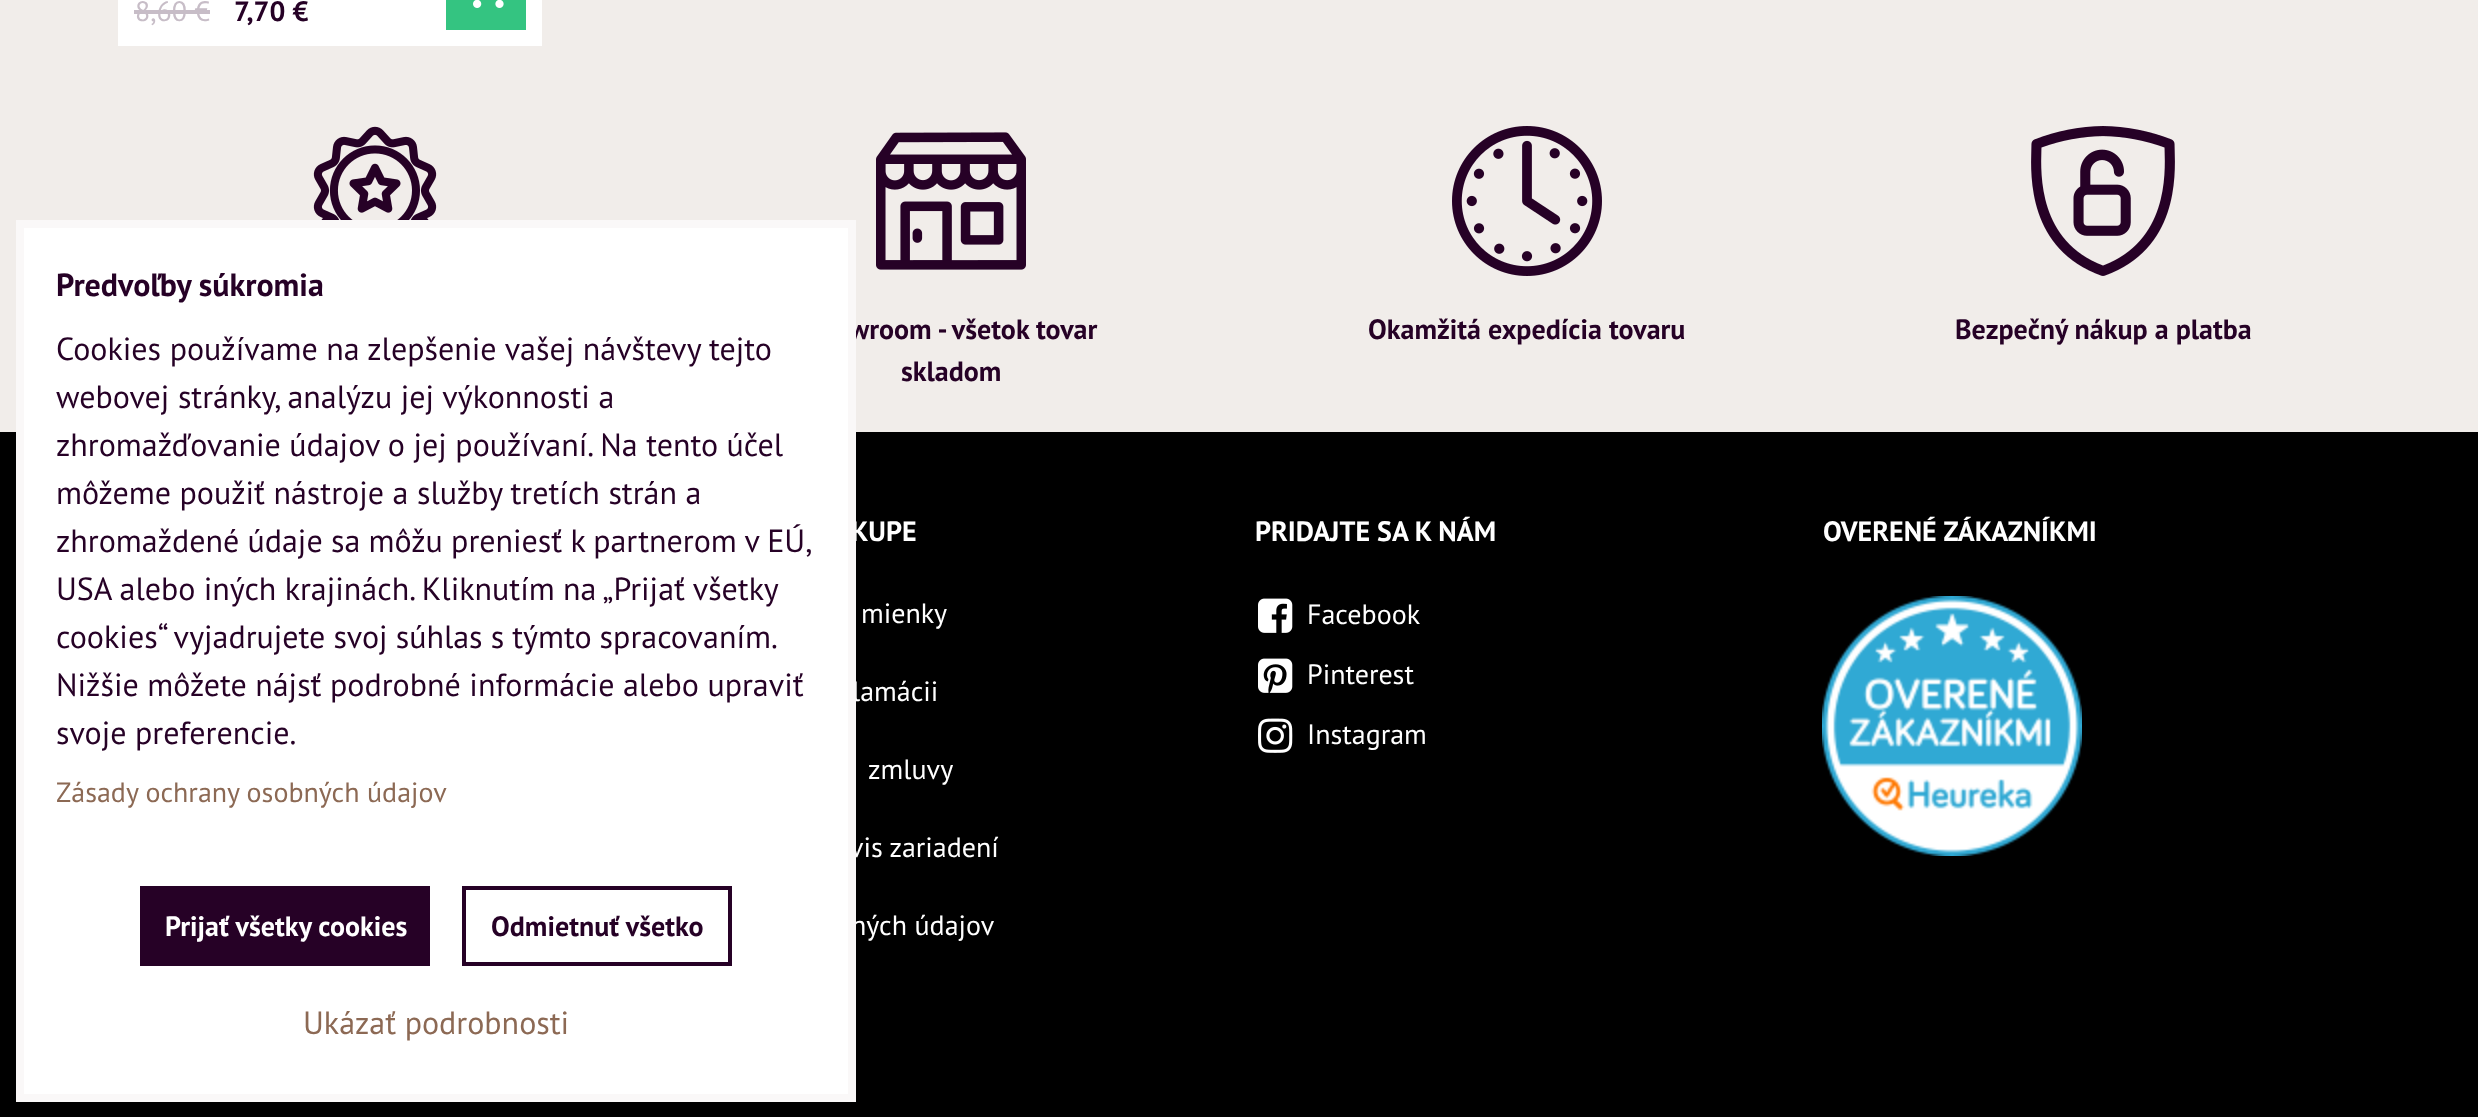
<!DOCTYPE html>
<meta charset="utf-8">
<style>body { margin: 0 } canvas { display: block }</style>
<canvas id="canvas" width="2478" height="1117"></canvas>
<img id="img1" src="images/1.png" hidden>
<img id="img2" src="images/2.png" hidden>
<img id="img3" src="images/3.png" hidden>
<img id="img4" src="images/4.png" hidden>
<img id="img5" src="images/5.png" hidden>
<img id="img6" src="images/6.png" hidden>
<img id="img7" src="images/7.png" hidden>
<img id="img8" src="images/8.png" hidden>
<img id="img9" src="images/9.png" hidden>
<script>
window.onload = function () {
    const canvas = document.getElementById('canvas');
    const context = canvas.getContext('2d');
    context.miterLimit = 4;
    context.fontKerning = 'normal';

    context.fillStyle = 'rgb(0, 0, 0)';
    context.fillRect(0, 0, 2478, 1117);
    context.fillStyle = 'rgb(241, 237, 234)';
    context.fillRect(0, 0, 2478, 432);
    context.fillStyle = 'rgb(255, 255, 255)';
    context.fillRect(118, 0, 424, 46);
    context.fillStyle = 'rgb(199, 189, 199)';
    context.fillRect(134, 10, 76, 4);
    context.fillStyle = 'rgb(52, 196, 129)';
    context.fillRect(446, 0, 80, 30);
    context.drawImage(document.getElementById('img1'), 473, 0, 31, 8);
    context.drawImage(document.getElementById('img2'), 313, 126, 124, 94);
    context.drawImage(document.getElementById('img3'), 876, 132, 150, 138);
    context.drawImage(document.getElementById('img4'), 1452, 126, 150, 150);
    context.drawImage(document.getElementById('img5'), 2031, 126, 144, 150);
    context.drawImage(document.getElementById('img6'), 1258, 598, 35, 35);
    context.drawImage(document.getElementById('img7'), 1258, 658, 35, 35);
    context.drawImage(document.getElementById('img8'), 1258, 718, 35, 35);
    context.drawImage(document.getElementById('img9'), 1822, 596, 260, 260);
    context.font = '28px PT Sans';
    context.fillStyle = 'rgb(199, 189, 199)';
    context.fillText('8,60 €', 135, 21);
    context.font = 'bold 28px PT Sans';
    context.fillStyle = 'rgb(38, 1, 38)';
    context.fillText('7,70 €', 234, 21);
    context.fillText('wroom - všetok tovar', 849, 339);
    context.fillText('skladom', 901, 381);
    context.fillText('Okamžitá expedícia tovaru', 1368, 339);
    context.fillText('Bezpečný nákup a platba', 1955, 339);
    context.fillStyle = 'rgb(255, 255, 255)';
    context.fillText('KUPE', 851, 541);
    context.font = '28px PT Sans';
    context.fillText('mienky', 861, 623);
    context.fillText('lamácii', 852, 701);
    context.fillText('zmluvy', 868, 779);
    context.fillText('vis zariadení', 850, 857);
    context.fillText('ných údajov', 851, 935);
    context.strokeStyle = 'rgb(250, 248, 248)';
    context.lineWidth = 8;
    context.strokeRect(20, 224, 832, 874);
    context.fillRect(24, 228, 824, 866);
    context.strokeStyle = 'rgb(38, 1, 38)';
    context.lineWidth = 4;
    context.strokeRect(464, 888, 266, 76);
    context.font = 'bold 28px PT Sans';
    context.fillStyle = 'rgb(38, 1, 38)';
    context.fillText('Odmietnuť všetko', 491, 936);
    context.fillRect(140, 886, 290, 80);
    context.fillStyle = 'rgb(255, 255, 255)';
    context.fillText('Prijať všetky cookies', 165, 936);
    context.font = '32px PT Sans';
    context.fillStyle = 'rgb(140, 105, 84)';
    context.fillText('Ukázať podrobnosti', 303, 1034);
    context.font = '28px PT Sans';
    context.fillText('Zásady ochrany osobných údajov', 56, 802);
    context.font = '32px PT Sans';
    context.fillStyle = 'rgb(38, 1, 38)';
    context.fillText('svoje preferencie.', 56, 744);
    context.fillText('Nižšie môžete nájsť podrobné informácie alebo upraviť', 56, 696);
    context.wordSpacing = '-0.5px';
    context.fillText('cookies“ vyjadrujete svoj súhlas s týmto spracovaním.', 56, 648);
    context.wordSpacing = '-0.25px';
    context.fillText('USA alebo iných krajinách. Kliknutím na „Prijať všetky', 56, 600);
    context.fillText('zhromaždené údaje sa môžu preniesť k partnerom v EÚ,', 56, 552);
    context.wordSpacing = '0px';
    context.fillText('môžeme použiť nástroje a služby tretích strán a', 56, 504);
    context.fillText('zhromažďovanie údajov o jej používaní. Na tento účel', 56, 456);
    context.fillText('webovej stránky, analýzu jej výkonnosti a', 56, 408);
    context.fillText('Cookies používame na zlepšenie vašej návštevy tejto', 56, 360);
    context.font = 'bold 32px PT Sans';
    context.fillText('Predvoľby súkromia', 56, 296);
    context.font = 'bold 28px PT Sans';
    context.fillStyle = 'rgb(255, 255, 255)';
    context.fillText('PRIDAJTE SA K NÁM', 1255, 541);
    context.font = '28px PT Sans';
    context.fillText('Facebook', 1307, 624);
    context.fillText('Pinterest', 1307, 684);
    context.fillText('Instagram', 1307, 744);
    context.font = 'bold 28px PT Sans';
    context.fillText('OVERENÉ ZÁKAZNÍKMI', 1823, 541);
};
</script>
